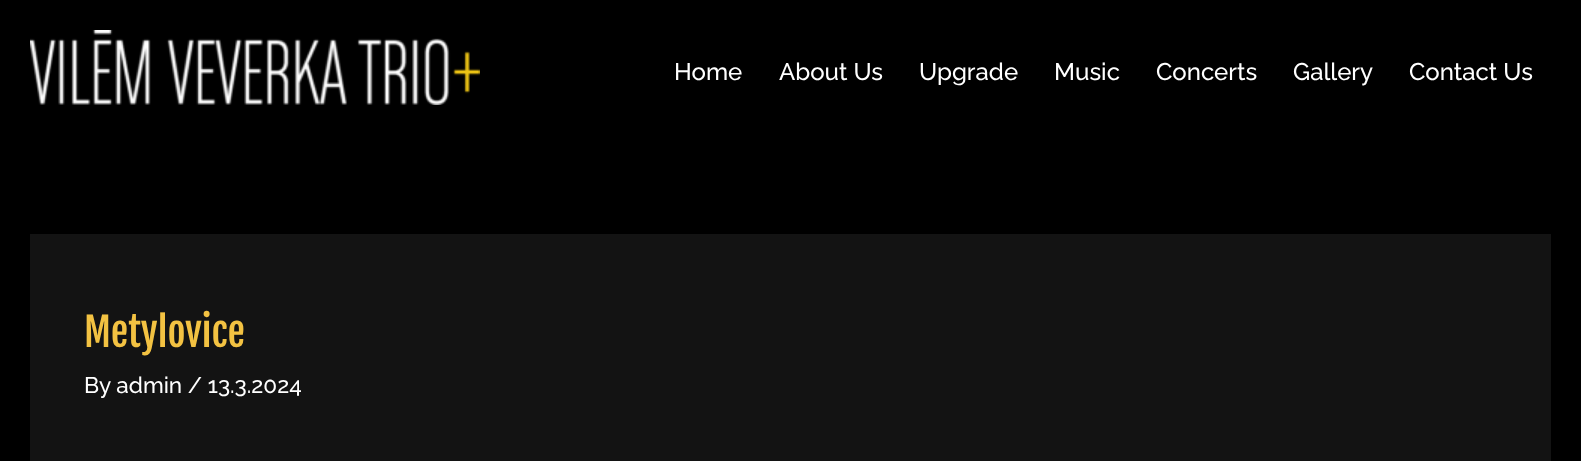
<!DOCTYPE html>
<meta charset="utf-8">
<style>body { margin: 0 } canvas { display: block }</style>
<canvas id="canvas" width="1581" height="461"></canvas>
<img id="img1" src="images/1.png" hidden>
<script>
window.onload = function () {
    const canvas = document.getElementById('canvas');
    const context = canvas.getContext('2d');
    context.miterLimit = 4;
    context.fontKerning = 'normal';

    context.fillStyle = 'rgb(0, 0, 0)';
    context.fillRect(0, 0, 1581, 461);
    context.drawImage(document.getElementById('img1'), 30, 30, 450, 75);
    context.fillStyle = 'rgb(19, 19, 19)';
    context.fillRect(30, 234, 1521, 227);
    context.font = '500 24px Raleway';
    context.fillStyle = 'rgb(255, 255, 255)';
    context.fillText('Home', 674, 80);
    context.fillText('About Us', 779, 80);
    context.fillText('Upgrade', 919, 80);
    context.fillText('Music', 1054, 80);
    context.fillText('Concerts', 1156, 80);
    context.fillText('Gallery', 1293, 80);
    context.fillText('Contact Us', 1409, 80);
    context.font = '39px Fjalla One';
    context.fillStyle = 'rgb(243, 194, 66)';
    context.fillText('Metylovice', 84, 347);
    context.font = '500 22.5px Raleway';
    context.fillStyle = 'rgb(255, 255, 255)';
    context.fillText('By admin / 13.3.2024', 84, 393);
};
</script>
